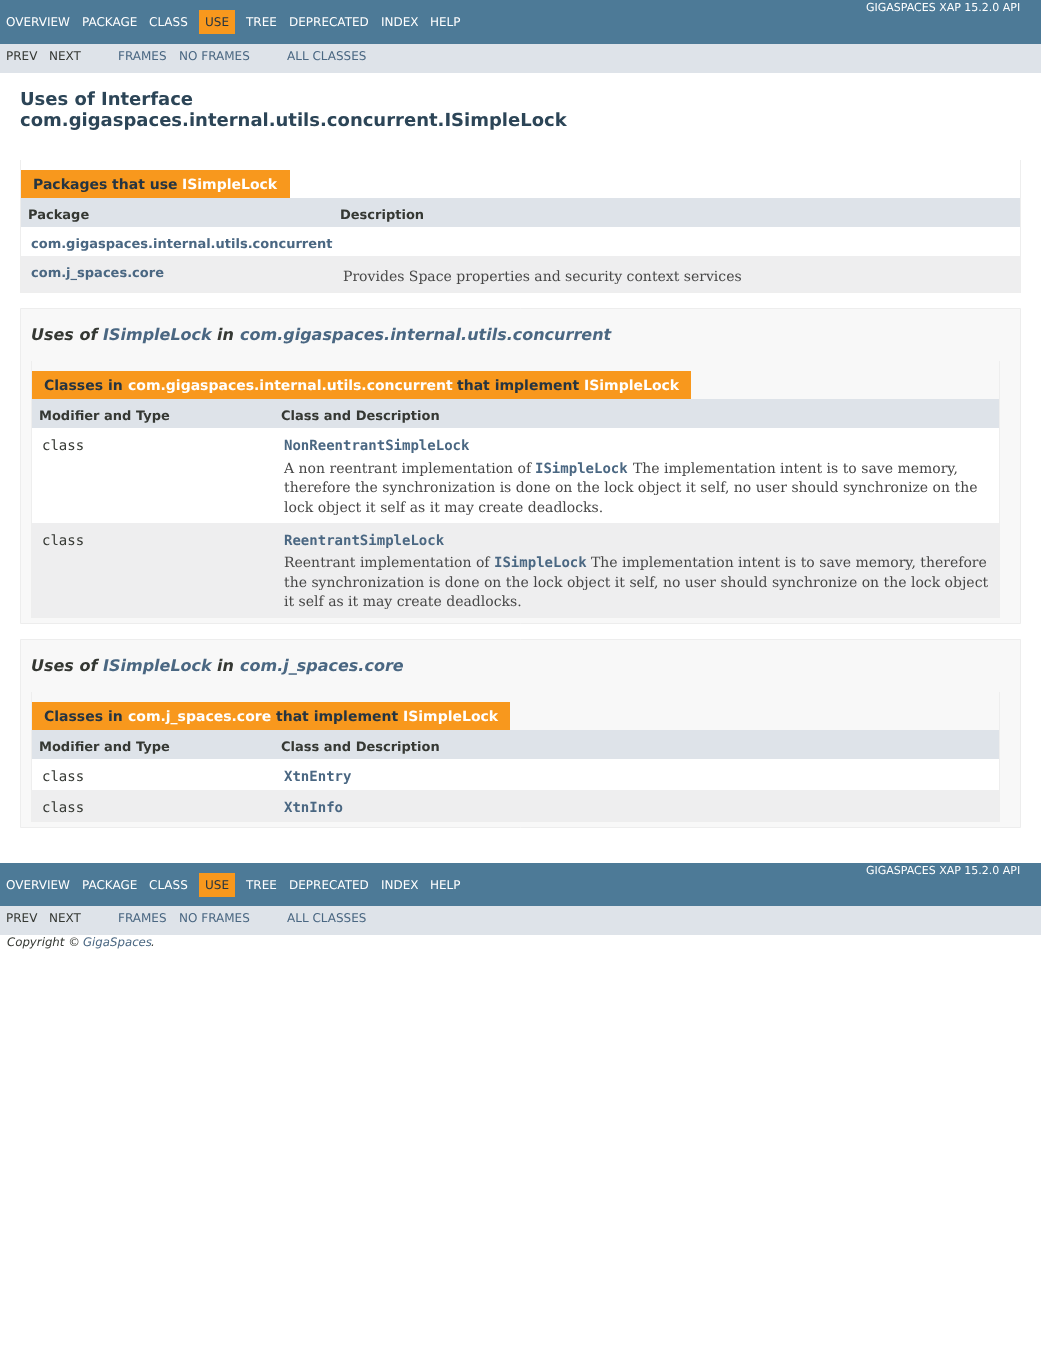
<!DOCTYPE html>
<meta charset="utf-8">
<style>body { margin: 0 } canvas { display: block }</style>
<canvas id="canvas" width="1041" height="1368"></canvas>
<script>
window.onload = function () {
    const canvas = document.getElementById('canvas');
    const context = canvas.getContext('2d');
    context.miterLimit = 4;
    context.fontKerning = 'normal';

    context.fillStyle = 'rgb(255, 255, 255)';
    context.fillRect(0, 0, 1041, 1368);
    context.fillStyle = 'rgb(77, 122, 151)';
    context.fillRect(0, 0, 1041, 44);
    context.fillStyle = 'rgb(248, 152, 29)';
    context.fillRect(199, 10, 36, 24);
    context.fillStyle = 'rgb(222, 227, 233)';
    context.fillRect(0, 44, 1041, 29);
    context.fillStyle = 'rgb(238, 238, 238)';
    context.fillRect(1020, 160, 1, 133);
    context.fillRect(20, 292, 1001, 1);
    context.fillRect(20, 160, 1, 133);
    context.fillStyle = 'rgb(248, 152, 29)';
    context.fillRect(21, 170, 269, 28);
    context.fillStyle = 'rgb(222, 227, 233)';
    context.fillRect(21, 198, 999, 29);
    context.fillStyle = 'rgb(238, 238, 239)';
    context.fillRect(21, 256, 999, 36);
    context.fillStyle = 'rgb(248, 248, 248)';
    context.beginPath();
    context.rect(20.5, 308.5, 1000, 315);
    context.fill();
    context.strokeStyle = 'rgb(237, 237, 237)';
    context.stroke();
    context.fillStyle = 'rgb(238, 238, 238)';
    context.fillRect(999, 361, 1, 257);
    context.fillRect(31, 617, 969, 1);
    context.fillRect(31, 361, 1, 257);
    context.fillStyle = 'rgb(248, 152, 29)';
    context.fillRect(32, 371, 659, 28);
    context.fillStyle = 'rgb(222, 227, 233)';
    context.fillRect(32, 399, 967, 29);
    context.fillStyle = 'rgb(255, 255, 255)';
    context.fillRect(32, 428, 967, 95);
    context.fillStyle = 'rgb(238, 238, 239)';
    context.fillRect(32, 523, 967, 94);
    context.fillStyle = 'rgb(248, 248, 248)';
    context.beginPath();
    context.rect(20.5, 639.5, 1000, 188);
    context.fill();
    context.stroke();
    context.fillStyle = 'rgb(238, 238, 238)';
    context.fillRect(999, 692, 1, 130);
    context.fillRect(31, 821, 969, 1);
    context.fillRect(31, 692, 1, 130);
    context.fillStyle = 'rgb(248, 152, 29)';
    context.fillRect(32, 702, 478, 28);
    context.fillStyle = 'rgb(222, 227, 233)';
    context.fillRect(32, 730, 967, 29);
    context.fillStyle = 'rgb(255, 255, 255)';
    context.fillRect(32, 759, 967, 31);
    context.fillStyle = 'rgb(238, 238, 239)';
    context.fillRect(32, 790, 967, 31);
    context.fillStyle = 'rgb(77, 122, 151)';
    context.fillRect(0, 863, 1041, 43);
    context.fillStyle = 'rgb(248, 152, 29)';
    context.fillRect(199, 873, 36, 24);
    context.fillStyle = 'rgb(222, 227, 233)';
    context.fillRect(0, 906, 1041, 29);
    context.font = '11px DejaVu Sans';
    context.fillStyle = 'rgb(255, 255, 255)';
    context.fillText('GIGASPACES XAP 15.2.0 API', 866, 11);
    context.font = '12px DejaVu Sans';
    context.fillText('OVERVIEW', 6, 26);
    context.fillText('PACKAGE', 82, 26);
    context.fillText('CLASS', 149, 26);
    context.fillStyle = 'rgb(37, 52, 65)';
    context.fillText('USE', 205, 26);
    context.fillStyle = 'rgb(255, 255, 255)';
    context.fillText('TREE', 246, 26);
    context.fillText('DEPRECATED', 289, 26);
    context.fillText('INDEX', 381, 26);
    context.fillText('HELP', 430, 26);
    context.fillStyle = 'rgb(53, 56, 51)';
    context.fillText('PREV', 6, 60);
    context.fillText('NEXT', 49, 60);
    context.fillStyle = 'rgb(74, 103, 130)';
    context.fillText('FRAMES', 118, 60);
    context.fillText('NO FRAMES', 179, 60);
    context.fillText('ALL CLASSES', 287, 60);
    context.font = 'bold 18px DejaVu Sans';
    context.fillStyle = 'rgb(44, 69, 87)';
    context.fillText('Uses of Interface', 20, 105);
    context.fillText('com.gigaspaces.internal.utils.concurrent.ISimpleLock', 20, 126);
    context.font = 'bold 14px DejaVu Sans';
    context.fillStyle = 'rgb(37, 52, 65)';
    context.fillText('Packages that use', 33, 189);
    context.fillStyle = 'rgb(255, 255, 255)';
    context.fillText('ISimpleLock', 182, 189);
    context.font = 'bold 13px DejaVu Sans';
    context.fillStyle = 'rgb(53, 56, 51)';
    context.fillText('Package', 28, 219);
    context.fillText('Description', 340, 219);
    context.fillStyle = 'rgb(74, 103, 130)';
    context.fillText('com.gigaspaces.internal.utils.concurrent', 31, 248);
    context.fillText('com.j_spaces.core', 31, 277);
    context.font = '14px DejaVu Serif';
    context.fillStyle = 'rgb(71, 71, 71)';
    context.fillText('Provides Space properties and security context services', 343, 281);
    context.font = 'italic bold 16px DejaVu Sans';
    context.fillStyle = 'rgb(53, 56, 51)';
    context.fillText('Uses of', 31, 340);
    context.fillStyle = 'rgb(74, 103, 130)';
    context.fillText('ISimpleLock', 103, 340);
    context.fillStyle = 'rgb(53, 56, 51)';
    context.fillText('in', 217, 340);
    context.fillStyle = 'rgb(74, 103, 130)';
    context.fillText('com.gigaspaces.internal.utils.concurrent', 240, 340);
    context.font = 'bold 14px DejaVu Sans';
    context.fillStyle = 'rgb(37, 52, 65)';
    context.fillText('Classes in', 44, 390);
    context.fillStyle = 'rgb(255, 255, 255)';
    context.fillText('com.gigaspaces.internal.utils.concurrent', 128, 390);
    context.fillStyle = 'rgb(37, 52, 65)';
    context.fillText('that implement', 457, 390);
    context.fillStyle = 'rgb(255, 255, 255)';
    context.fillText('ISimpleLock', 584, 390);
    context.font = 'bold 13px DejaVu Sans';
    context.fillStyle = 'rgb(53, 56, 51)';
    context.fillText('Modifier and Type', 39, 420);
    context.fillText('Class and Description', 281, 420);
    context.font = '14px DejaVu Sans Mono';
    context.fillText('class', 42, 450);
    context.font = 'bold 14px DejaVu Sans Mono';
    context.fillStyle = 'rgb(74, 103, 130)';
    context.fillText('NonReentrantSimpleLock', 284, 450);
    context.font = '14px DejaVu Serif';
    context.fillStyle = 'rgb(71, 71, 71)';
    context.fillText('A non reentrant implementation of', 284, 473);
    context.font = 'bold 14px DejaVu Sans Mono';
    context.fillStyle = 'rgb(74, 103, 130)';
    context.fillText('ISimpleLock', 535, 473);
    context.font = '14px DejaVu Serif';
    context.fillStyle = 'rgb(71, 71, 71)';
    context.fillText('The implementation intent is to save memory,', 633, 473);
    context.fillText('therefore the synchronization is done on the lock object it self, no user should synchronize on the', 284, 492);
    context.fillText('lock object it self as it may create deadlocks.', 284, 512);
    context.font = '14px DejaVu Sans Mono';
    context.fillStyle = 'rgb(53, 56, 51)';
    context.fillText('class', 42, 545);
    context.font = 'bold 14px DejaVu Sans Mono';
    context.fillStyle = 'rgb(74, 103, 130)';
    context.fillText('ReentrantSimpleLock', 284, 545);
    context.font = '14px DejaVu Serif';
    context.fillStyle = 'rgb(71, 71, 71)';
    context.fillText('Reentrant implementation of', 284, 567);
    context.font = 'bold 14px DejaVu Sans Mono';
    context.fillStyle = 'rgb(74, 103, 130)';
    context.fillText('ISimpleLock', 494, 567);
    context.font = '14px DejaVu Serif';
    context.fillStyle = 'rgb(71, 71, 71)';
    context.fillText('The implementation intent is to save memory, therefore', 591, 567);
    context.fillText('the synchronization is done on the lock object it self, no user should synchronize on the lock object', 284, 587);
    context.fillText('it self as it may create deadlocks.', 284, 606);
    context.font = 'italic bold 16px DejaVu Sans';
    context.fillStyle = 'rgb(53, 56, 51)';
    context.fillText('Uses of', 31, 671);
    context.fillStyle = 'rgb(74, 103, 130)';
    context.fillText('ISimpleLock', 103, 671);
    context.fillStyle = 'rgb(53, 56, 51)';
    context.fillText('in', 217, 671);
    context.fillStyle = 'rgb(74, 103, 130)';
    context.fillText('com.j_spaces.core', 240, 671);
    context.font = 'bold 14px DejaVu Sans';
    context.fillStyle = 'rgb(37, 52, 65)';
    context.fillText('Classes in', 44, 721);
    context.fillStyle = 'rgb(255, 255, 255)';
    context.fillText('com.j_spaces.core', 128, 721);
    context.fillStyle = 'rgb(37, 52, 65)';
    context.fillText('that implement', 276, 721);
    context.fillStyle = 'rgb(255, 255, 255)';
    context.fillText('ISimpleLock', 403, 721);
    context.font = 'bold 13px DejaVu Sans';
    context.fillStyle = 'rgb(53, 56, 51)';
    context.fillText('Modifier and Type', 39, 751);
    context.fillText('Class and Description', 281, 751);
    context.font = '14px DejaVu Sans Mono';
    context.fillText('class', 42, 781);
    context.font = 'bold 14px DejaVu Sans Mono';
    context.fillStyle = 'rgb(74, 103, 130)';
    context.fillText('XtnEntry', 284, 781);
    context.font = '14px DejaVu Sans Mono';
    context.fillStyle = 'rgb(53, 56, 51)';
    context.fillText('class', 42, 812);
    context.font = 'bold 14px DejaVu Sans Mono';
    context.fillStyle = 'rgb(74, 103, 130)';
    context.fillText('XtnInfo', 284, 812);
    context.font = '11px DejaVu Sans';
    context.fillStyle = 'rgb(255, 255, 255)';
    context.fillText('GIGASPACES XAP 15.2.0 API', 866, 874);
    context.font = '12px DejaVu Sans';
    context.fillText('OVERVIEW', 6, 889);
    context.fillText('PACKAGE', 82, 889);
    context.fillText('CLASS', 149, 889);
    context.fillStyle = 'rgb(37, 52, 65)';
    context.fillText('USE', 205, 889);
    context.fillStyle = 'rgb(255, 255, 255)';
    context.fillText('TREE', 246, 889);
    context.fillText('DEPRECATED', 289, 889);
    context.fillText('INDEX', 381, 889);
    context.fillText('HELP', 430, 889);
    context.fillStyle = 'rgb(53, 56, 51)';
    context.fillText('PREV', 6, 922);
    context.fillText('NEXT', 49, 922);
    context.fillStyle = 'rgb(74, 103, 130)';
    context.fillText('FRAMES', 118, 922);
    context.fillText('NO FRAMES', 179, 922);
    context.fillText('ALL CLASSES', 287, 922);
    context.font = 'italic 11.75px DejaVu Sans';
    context.fillStyle = 'rgb(53, 56, 51)';
    context.fillText('Copyright ©', 7, 946);
    context.fillStyle = 'rgb(74, 103, 130)';
    context.fillText('GigaSpaces', 83, 946);
    context.fillStyle = 'rgb(53, 56, 51)';
    context.fillText('.', 151, 946);
};
</script>
